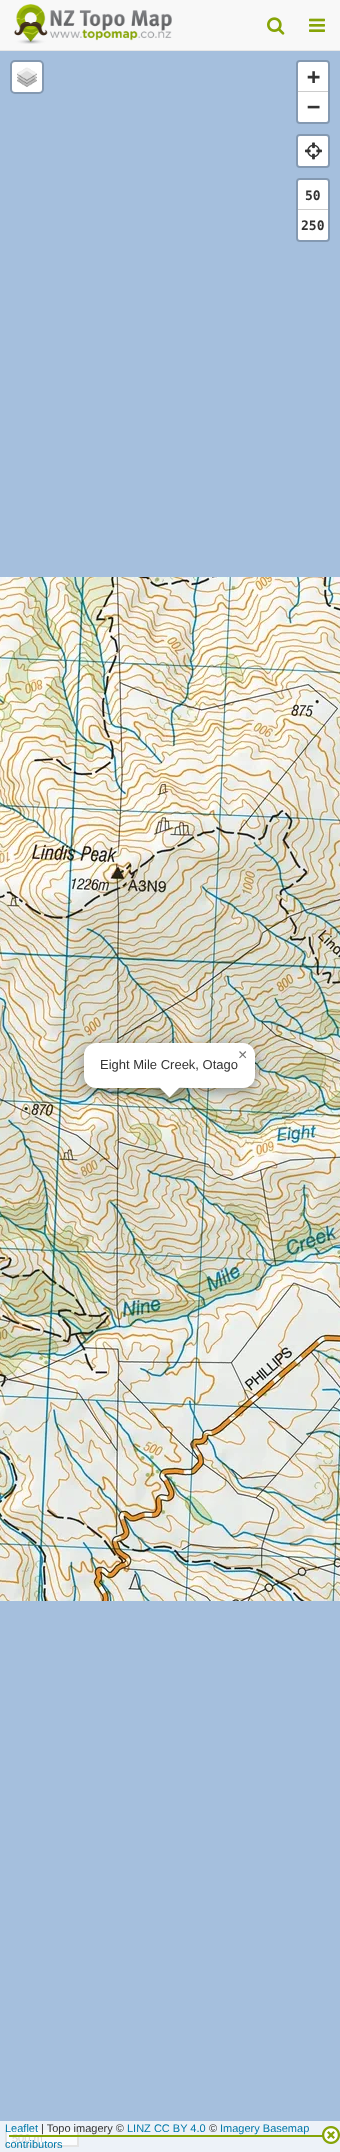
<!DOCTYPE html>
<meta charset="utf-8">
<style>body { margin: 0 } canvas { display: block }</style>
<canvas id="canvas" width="340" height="2152"></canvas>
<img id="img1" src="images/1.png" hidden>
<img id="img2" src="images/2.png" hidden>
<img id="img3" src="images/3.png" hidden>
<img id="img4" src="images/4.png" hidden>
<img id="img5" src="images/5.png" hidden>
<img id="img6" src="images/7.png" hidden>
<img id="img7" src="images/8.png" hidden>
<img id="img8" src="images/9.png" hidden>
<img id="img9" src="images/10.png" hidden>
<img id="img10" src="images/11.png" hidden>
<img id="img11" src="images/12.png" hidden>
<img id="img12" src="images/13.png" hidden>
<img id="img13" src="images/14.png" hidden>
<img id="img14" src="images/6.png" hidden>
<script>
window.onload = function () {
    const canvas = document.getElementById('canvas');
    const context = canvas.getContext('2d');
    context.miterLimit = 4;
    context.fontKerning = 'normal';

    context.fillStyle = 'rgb(165, 191, 221)';
    context.fillRect(0, 0, 340, 2152);
    context.fillStyle = 'rgb(248, 248, 248)';
    context.fillRect(0, 0, 340, 50);
    context.fillStyle = 'rgb(231, 231, 231)';
    context.fillRect(0, 50, 340, 1);
    context.drawImage(document.getElementById('img1'), 14, 4, 158, 40);
    context.drawImage(document.getElementById('img2'), 267, 17, 18, 18);
    context.drawImage(document.getElementById('img3'), 309, 18, 16, 14);
    context.fillStyle = 'rgb(237, 242, 248)';
    context.fillRect(0, 2121, 340, 31);
    context.fillStyle = 'rgb(255, 255, 255)';
    context.beginPath();
    context.roundRect(11, 61, 32, 32, 4);
    context.fill();
    context.strokeStyle = 'rgb(132, 153, 177)';
    context.lineWidth = 2;
    context.stroke();
    context.drawImage(document.getElementById('img4'), 17, 67, 20, 20);
    context.beginPath();
    context.roundRect(297, 61, 32, 62, 3);
    context.stroke();
    context.beginPath();
    context.roundRect(298, 62, 30, 30, [2, 2, 0, 0]);
    context.fill();
    context.fillStyle = 'rgb(204, 204, 204)';
    context.fillRect(298, 91, 30, 1);
    context.fillStyle = 'rgb(255, 255, 255)';
    context.beginPath();
    context.roundRect(298, 92, 30, 30, [0, 0, 2, 2]);
    context.fill();
    context.beginPath();
    context.roundRect(297, 135, 32, 32, 3);
    context.stroke();
    context.beginPath();
    context.roundRect(298, 136, 30, 30, 2);
    context.fill();
    context.drawImage(document.getElementById('img5'), 305, 142, 17, 18);
    context.beginPath();
    context.roundRect(297, 179, 32, 62, 3);
    context.stroke();
    context.beginPath();
    context.roundRect(298, 180, 30, 30, [2, 2, 0, 0]);
    context.fill();
    context.fillStyle = 'rgb(204, 204, 204)';
    context.fillRect(298, 209, 30, 1);
    context.fillStyle = 'rgb(255, 255, 255)';
    context.beginPath();
    context.roundRect(298, 210, 30, 30, [0, 0, 2, 2]);
    context.fill();
    context.fillStyle = 'rgb(251, 252, 254)';
    context.fillRect(7, 2130, 70, 15);
    context.fillStyle = 'rgb(228, 228, 228)';
    context.fillRect(77, 2130, 2, 17);
    context.fillRect(5, 2145, 74, 2);
    context.fillRect(5, 2130, 2, 17);
    context.drawImage(document.getElementById('img6'), 0, 577, 202, 256);
    context.drawImage(document.getElementById('img7'), 202, 577, 138, 256);
    context.drawImage(document.getElementById('img8'), 0, 833, 202, 256);
    context.drawImage(document.getElementById('img9'), 202, 833, 138, 256);
    context.drawImage(document.getElementById('img10'), 0, 1089, 202, 256);
    context.drawImage(document.getElementById('img11'), 202, 1089, 138, 256);
    context.drawImage(document.getElementById('img12'), 0, 1345, 202, 256);
    context.drawImage(document.getElementById('img13'), 202, 1345, 138, 256);
    context.fillStyle = 'rgba(0, 0, 0, 0.4)';
    context.filter = 'blur(7px)';
    context.beginPath();
    context.roundRect(84, 1046, 171, 45, 12);
    context.fill();
    context.filter = 'none';
    context.fillStyle = 'rgb(255, 255, 255)';
    context.beginPath();
    context.roundRect(84, 1043, 171, 45, 12);
    context.fill();
    context.save();
    context.beginPath();
    context.rect(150, 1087, 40, 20);
    context.clip();
    context.fillStyle = 'rgba(0, 0, 0, 0.4)';
    context.filter = 'blur(7px)';
    context.beginPath();
    context.rect(161, 1080, 17, 17);
    context.fill();
    context.filter = 'none';
    context.restore();
    context.save();
    context.beginPath();
    context.rect(150, 1087, 40, 20);
    context.clip();
    context.beginPath();
    context.moveTo(169.5, 1073.5);
    context.lineTo(181.5, 1085.5);
    context.lineTo(169.5, 1097.5);
    context.lineTo(157.5, 1085.5);
    context.closePath();
    context.fill();
    context.restore();
    context.font = 'bold 22px DejaVu Sans Mono';
    context.fillStyle = 'rgb(51, 51, 51)';
    context.fillText('+', 307, 84);
    context.fillText('−', 307, 114);
    context.font = 'bold 13px DejaVu Sans Mono';
    context.fillText('50', 305, 200);
    context.fillText('250', 301, 230);
    context.font = '11px Liberation Sans';
    context.fillStyle = 'rgb(0, 120, 168)';
    context.fillText('Leaflet', 5, 2132);
    context.fillStyle = 'rgb(51, 51, 51)';
    context.fillText('| Topo imagery ©', 41, 2132);
    context.fillStyle = 'rgb(0, 120, 168)';
    context.fillText('LINZ CC BY 4.0', 127, 2132);
    context.fillStyle = 'rgb(51, 51, 51)';
    context.fillText('©', 209, 2132);
    context.fillStyle = 'rgb(0, 120, 168)';
    context.fillText('Imagery Basemap', 220, 2132);
    context.fillText('contributors', 5, 2148);
    context.fillStyle = 'rgb(214, 214, 214)';
    context.fillText('500 m', 12, 2142);
    context.fillStyle = 'rgb(134, 164, 6)';
    context.fillRect(9, 2135, 322, 2);
    context.drawImage(document.getElementById('img14'), 322, 2126, 18, 18);
    context.font = '16px Liberation Sans';
    context.fillStyle = 'rgb(117, 117, 117)';
    context.fillText('×', 238, 1060);
    context.font = '13px Liberation Sans';
    context.fillStyle = 'rgb(51, 51, 51)';
    context.fillText('Eight Mile Creek, Otago', 100, 1069);
};
</script>
